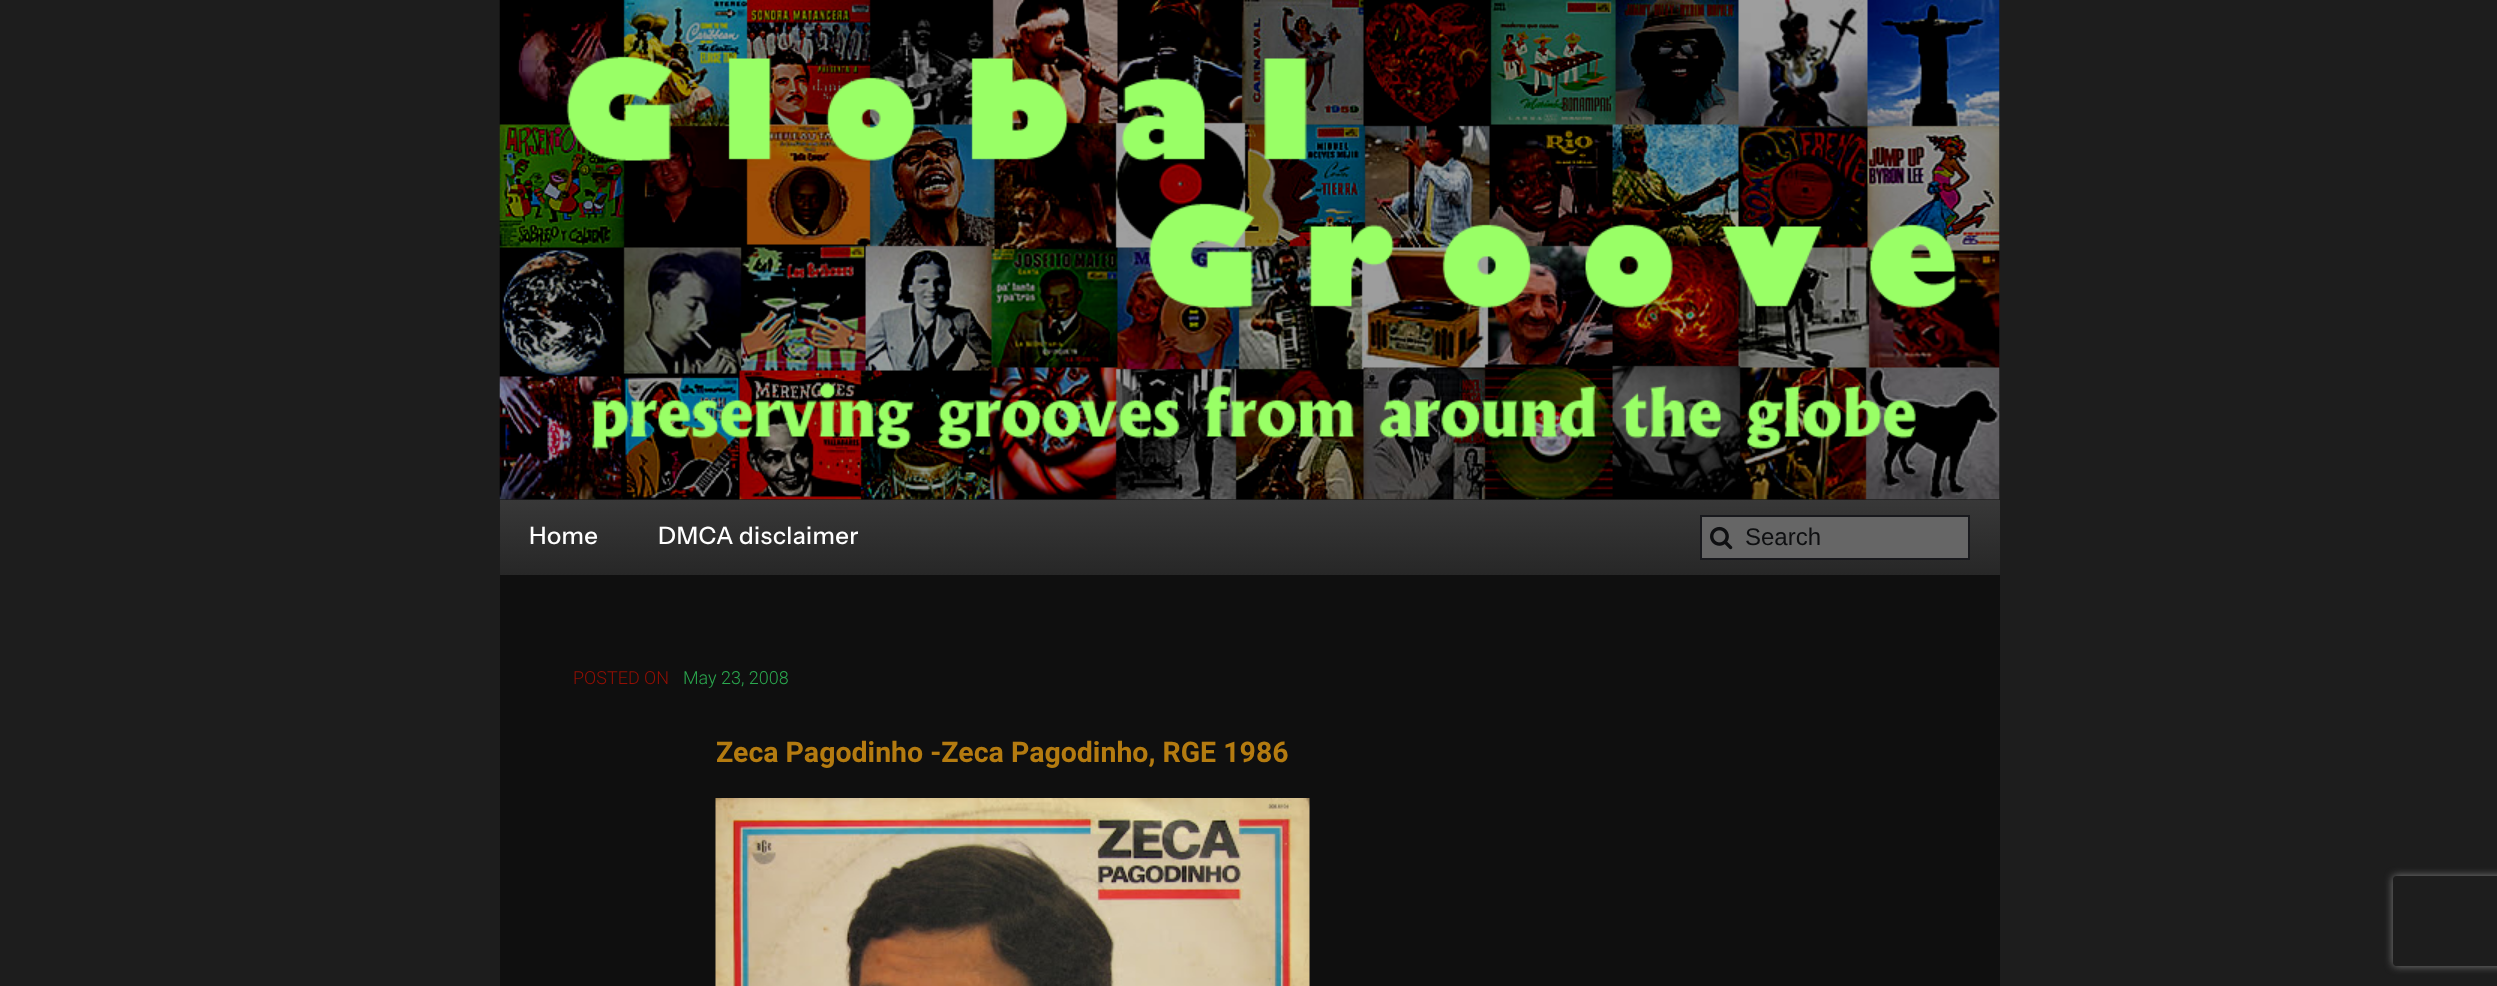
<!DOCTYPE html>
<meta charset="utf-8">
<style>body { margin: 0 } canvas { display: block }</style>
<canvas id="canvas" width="2497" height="986"></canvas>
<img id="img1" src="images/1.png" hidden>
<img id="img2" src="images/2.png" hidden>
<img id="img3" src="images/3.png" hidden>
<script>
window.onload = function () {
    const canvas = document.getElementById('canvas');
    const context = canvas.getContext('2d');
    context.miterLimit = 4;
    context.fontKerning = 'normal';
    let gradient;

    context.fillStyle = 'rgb(29, 29, 29)';
    context.fillRect(0, 0, 2497, 986);
    context.drawImage(document.getElementById('img1'), 499, 0, 1501, 500);
    gradient = context.createLinearGradient(1100, 499, 1100, 575);
    gradient.addColorStop(0, 'rgb(56, 56, 56)');
    gradient.addColorStop(1, 'rgb(39, 39, 39)');
    context.fillStyle = gradient;
    context.fillRect(500, 500, 1200, 75);
    gradient = context.createLinearGradient(1850, 500, 1850, 575);
    gradient.addColorStop(0, 'rgb(56, 56, 56)');
    gradient.addColorStop(1, 'rgb(39, 39, 39)');
    context.fillStyle = gradient;
    context.fillRect(1700, 500, 300, 75);
    context.fillStyle = 'rgb(102, 102, 102)';
    context.beginPath();
    context.rect(1701, 516, 268, 43);
    context.fill();
    context.strokeStyle = 'rgb(24, 25, 29)';
    context.lineWidth = 2;
    context.stroke();
    context.drawImage(document.getElementById('img2'), 1710, 526, 23, 24);
    context.fillStyle = 'rgb(15, 15, 15)';
    context.fillRect(500, 575, 1500, 411);
    context.drawImage(document.getElementById('img3'), 715, 798, 595, 188);
    context.save();
    context.beginPath();
    context.moveTo(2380, 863);
    context.lineTo(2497, 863);
    context.lineTo(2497, 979);
    context.lineTo(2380, 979);
    context.closePath();
    context.moveTo(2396, 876);
    context.lineTo(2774, 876);
    context.bezierCurveTo(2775.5, 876, 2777, 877.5, 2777, 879);
    context.lineTo(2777, 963);
    context.bezierCurveTo(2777, 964.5, 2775.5, 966, 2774, 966);
    context.lineTo(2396, 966);
    context.bezierCurveTo(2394.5, 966, 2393, 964.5, 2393, 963);
    context.lineTo(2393, 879);
    context.bezierCurveTo(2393, 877.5, 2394.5, 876, 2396, 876);
    context.closePath();
    context.clip('evenodd');
    context.fillStyle = 'rgb(128, 128, 128)';
    context.filter = 'blur(4px)';
    context.beginPath();
    context.roundRect(2393, 876, 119, 90, 3);
    context.fill();
    context.filter = 'none';
    context.restore();
    context.letterSpacing = '0.4px';
    context.font = '500 24px Instrument Sans';
    context.fillStyle = 'rgb(255, 255, 255)';
    context.fillText('Home', 529, 544);
    context.fillText('DMCA disclaimer', 658, 544);
    context.letterSpacing = '0px';
    context.font = '24px Liberation Sans';
    context.fillStyle = 'rgb(14, 15, 17)';
    context.fillText('Search', 1745, 545);
    context.font = '300 18px Roboto';
    context.fillStyle = 'rgb(148, 15, 4)';
    context.fillText('POSTED ON', 573, 684);
    context.fillStyle = 'rgb(43, 169, 79)';
    context.fillText('May 23, 2008', 683, 684);
    context.font = 'bold 28.5px Roboto';
    context.fillStyle = 'rgb(180, 123, 16)';
    context.fillText('Zeca Pagodinho -Zeca Pagodinho, RGE 1986', 716, 762);
};
</script>
